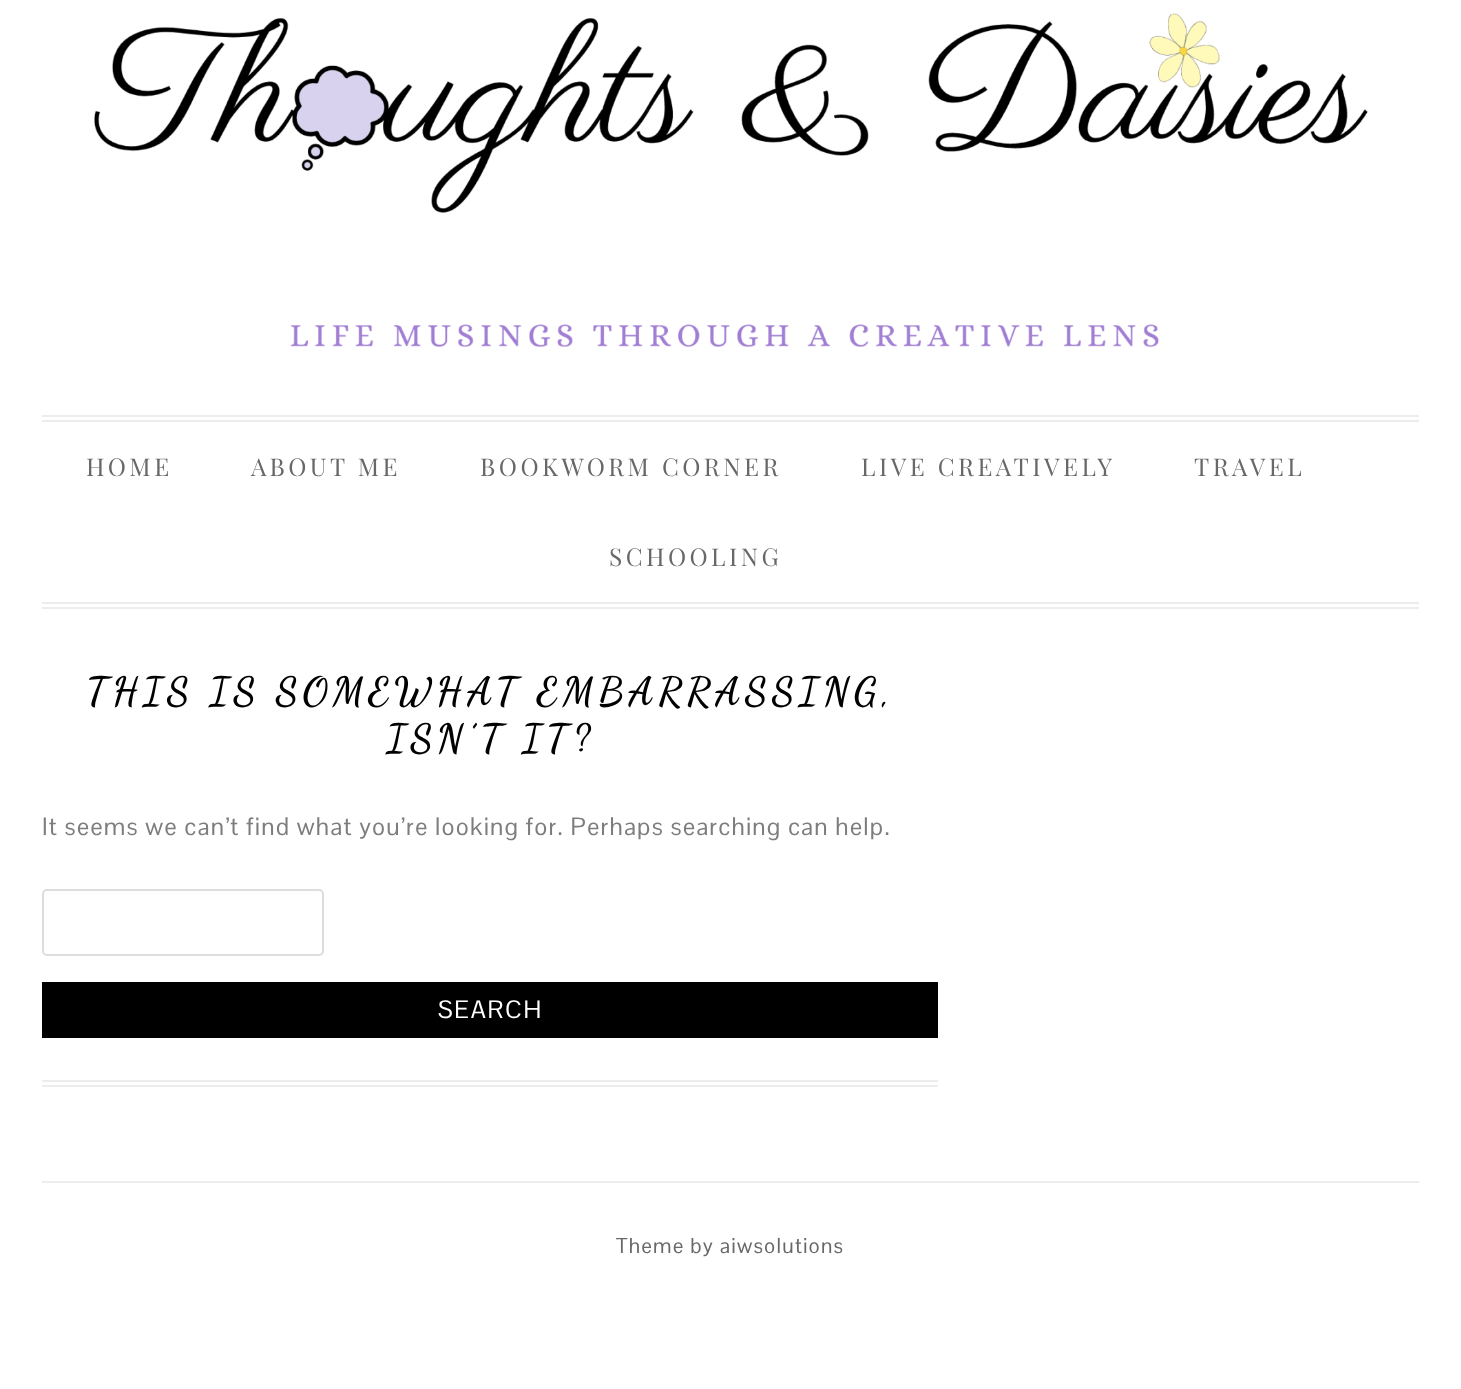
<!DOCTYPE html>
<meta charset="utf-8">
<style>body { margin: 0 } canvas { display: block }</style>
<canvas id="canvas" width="1461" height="1389"></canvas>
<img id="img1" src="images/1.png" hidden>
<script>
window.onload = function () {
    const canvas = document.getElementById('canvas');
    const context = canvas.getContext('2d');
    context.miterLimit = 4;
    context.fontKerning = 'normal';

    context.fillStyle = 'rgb(255, 255, 255)';
    context.fillRect(0, 0, 1461, 1389);
    context.drawImage(document.getElementById('img1'), 94, 13, 1274, 334);
    context.fillStyle = 'rgb(237, 237, 237)';
    context.fillRect(42, 415, 1377, 2);
    context.fillRect(42, 420, 1377, 2);
    context.fillRect(42, 602, 1377, 2);
    context.fillRect(42, 607, 1377, 2);
    context.fillRect(42, 1080, 896, 2);
    context.fillRect(42, 1085, 896, 2);
    context.beginPath();
    context.roundRect(43, 890, 280, 65, 4);
    context.strokeStyle = 'rgb(221, 221, 221)';
    context.lineWidth = 2;
    context.stroke();
    context.fillStyle = 'rgb(0, 0, 0)';
    context.fillRect(42, 982, 896, 56);
    context.fillStyle = 'rgb(237, 237, 237)';
    context.fillRect(42, 1181, 1377, 2);
    context.letterSpacing = '3.5px';
    context.font = '24.5px Playfair Display';
    context.fillStyle = 'rgb(104, 104, 104)';
    context.fillText('HOME', 86, 476);
    context.fillText('ABOUT ME', 251, 476);
    context.fillText('BOOKWORM CORNER', 480, 476);
    context.fillText('LIVE CREATIVELY', 861, 476);
    context.fillText('TRAVEL', 1194, 476);
    context.fillText('SCHOOLING', 609, 566);
    context.letterSpacing = '4.9px';
    context.font = 'bold 39.2px Dancing Script';
    context.fillStyle = 'rgb(0, 0, 0)';
    context.fillText('THIS IS SOMEWHAT EMBARRASSING,', 86, 704);
    context.fillText('ISN’T IT?', 386, 751);
    context.letterSpacing = '1.22px';
    context.font = '24.5px Pontano Sans';
    context.fillStyle = 'rgb(125, 125, 125)';
    context.fillText('It seems we can’t find what you’re looking for. Perhaps searching can help.', 42, 835);
    context.letterSpacing = '1.75px';
    context.fillStyle = 'rgb(255, 255, 255)';
    context.fillText('SEARCH', 438, 1018);
    context.letterSpacing = '1.22px';
    context.font = '21px Pontano Sans';
    context.fillStyle = 'rgb(104, 104, 104)';
    context.fillText('Theme by aiwsolutions', 616, 1253);
};
</script>
